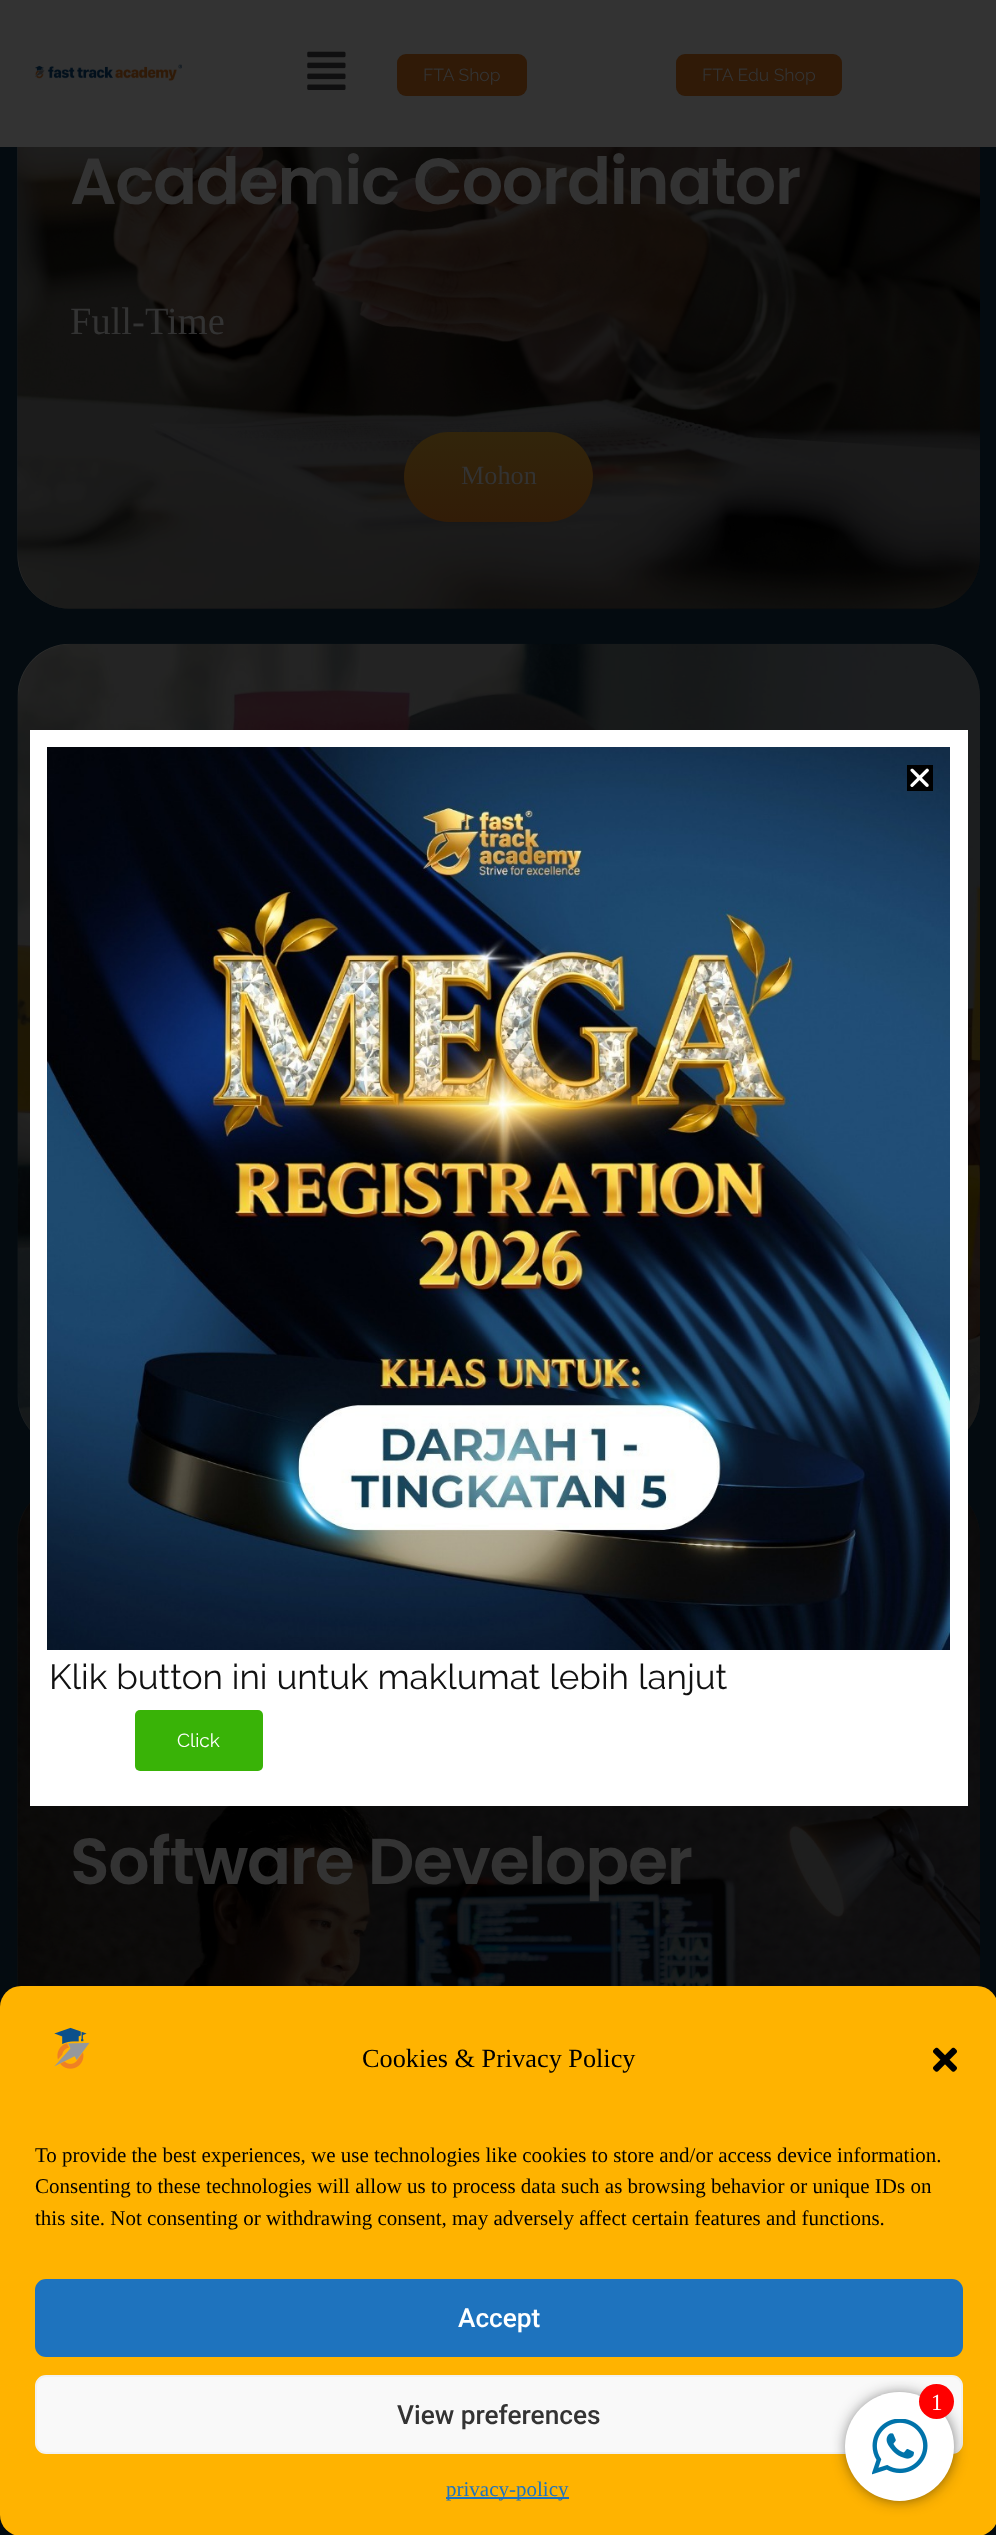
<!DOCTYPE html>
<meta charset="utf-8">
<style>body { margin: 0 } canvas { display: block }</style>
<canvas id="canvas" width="996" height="2535"></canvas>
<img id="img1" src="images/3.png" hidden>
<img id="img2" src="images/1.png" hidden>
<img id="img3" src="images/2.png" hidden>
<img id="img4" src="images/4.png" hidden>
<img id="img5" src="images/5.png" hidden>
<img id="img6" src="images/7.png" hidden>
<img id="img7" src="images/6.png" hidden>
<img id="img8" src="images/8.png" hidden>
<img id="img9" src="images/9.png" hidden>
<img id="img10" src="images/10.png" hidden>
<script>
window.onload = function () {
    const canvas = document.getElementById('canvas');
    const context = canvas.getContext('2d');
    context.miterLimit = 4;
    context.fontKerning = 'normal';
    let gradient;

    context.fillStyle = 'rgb(4, 11, 16)';
    context.fillRect(0, 0, 996, 2535);
    context.drawImage(document.getElementById('img1'), 17, 147, 963, 462);
    context.fillStyle = 'rgba(0, 0, 0, 0.39)';
    context.beginPath();
    context.roundRect(18, -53, 962, 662, 53);
    context.fill();
    context.fillStyle = 'rgb(51, 51, 51)';
    context.fillRect(0, 0, 996, 147);
    context.drawImage(document.getElementById('img2'), 35, 64, 147, 17);
    context.drawImage(document.getElementById('img3'), 307, 51, 39, 39);
    context.fillStyle = 'rgb(48, 26, 7)';
    context.beginPath();
    context.roundRect(397, 54, 130, 42, 9);
    context.fill();
    context.beginPath();
    context.roundRect(676, 54, 166, 42, 9);
    context.fill();
    gradient = context.createLinearGradient(499, 522, 499, 432);
    gradient.addColorStop(0, 'rgb(50, 28, 7)');
    gradient.addColorStop(1, 'rgb(50, 37, 11)');
    context.fillStyle = gradient;
    context.beginPath();
    context.roundRect(404, 432, 189, 90, 45);
    context.fill();
    context.drawImage(document.getElementById('img4'), 17, 643, 963, 787);
    context.fillStyle = 'rgba(0, 0, 0, 0.28)';
    context.beginPath();
    context.roundRect(18, 644, 962, 805, 53);
    context.fill();
    context.drawImage(document.getElementById('img5'), 17, 1502, 963, 485);
    context.fillStyle = 'rgba(0, 0, 0, 0.41)';
    context.beginPath();
    context.roundRect(18, 1484, 962, 805, 53);
    context.fill();
    context.fillStyle = 'rgb(255, 255, 255)';
    context.fillRect(30, 730, 938, 1076);
    context.drawImage(document.getElementById('img6'), 47, 747, 903, 903);
    context.fillStyle = 'rgb(0, 0, 0)';
    context.fillRect(907, 765, 26, 26);
    context.drawImage(document.getElementById('img7'), 910, 768, 19, 19);
    context.fillStyle = 'rgb(57, 179, 7)';
    context.beginPath();
    context.roundRect(135, 1710, 128, 61, 5);
    context.fill();
    context.fillStyle = 'rgb(255, 179, 0)';
    context.beginPath();
    context.roundRect(0, 1986, 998, 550, 21);
    context.fill();
    context.drawImage(document.getElementById('img8'), 54, 2027, 36, 42);
    context.drawImage(document.getElementById('img9'), 933, 2047, 24, 25);
    context.fillStyle = 'rgb(30, 115, 190)';
    context.beginPath();
    context.roundRect(36, 2280, 926, 76, 10);
    context.fill();
    context.strokeStyle = 'rgb(30, 115, 190)';
    context.lineWidth = 2;
    context.stroke();
    context.fillStyle = 'rgb(249, 249, 249)';
    context.beginPath();
    context.roundRect(36, 2376, 926, 77, 10);
    context.fill();
    context.strokeStyle = 'rgb(242, 242, 242)';
    context.stroke();
    context.fillStyle = 'rgb(30, 115, 190)';
    context.fillRect(446, 2497, 123, 2);
    context.fillStyle = 'rgb(17, 17, 17)';
    context.filter = 'blur(9px)';
    context.beginPath();
    context.roundRect(851, 2398, 98, 98, 49);
    context.fill();
    context.filter = 'none';
    context.fillStyle = 'rgb(255, 255, 255)';
    context.beginPath();
    context.arc(899.5, 2446.5, 54.5, 0, 2 * Math.PI);
    context.fill();
    context.fillStyle = 'rgb(255, 0, 0)';
    context.beginPath();
    context.arc(936.5, 2401.5, 17.5, 0, 2 * Math.PI);
    context.fill();
    context.drawImage(document.getElementById('img10'), 872, 2419, 56, 56);
    context.font = '17.5px Raleway';
    context.fillStyle = 'rgb(51, 51, 51)';
    context.fillText('FTA Shop', 423, 81);
    context.fillText('FTA Edu Shop', 702, 81);
    context.letterSpacing = '-1.3px';
    context.font = '600 65px Poppins';
    context.fillText('Academic Coordinator', 70, 204);
    context.letterSpacing = '0px';
    context.font = '38.5px Liberation Serif';
    context.fillText('Full-Time', 70, 334);
    context.font = '26.25px Liberation Serif';
    context.fillText('Mohon', 461, 484);
    context.letterSpacing = '-1.3px';
    context.font = '600 65px Poppins';
    context.fillText('Software Developer', 70, 1884);
    context.letterSpacing = '0px';
    context.font = '35px Raleway';
    context.fillStyle = 'rgb(17, 17, 17)';
    context.fillText('Klik button ini untuk maklumat lebih lanjut', 49, 1689);
    context.font = '19px Raleway';
    context.fillStyle = 'rgb(255, 255, 255)';
    context.fillText('Click', 177, 1747);
    context.font = '26.25px Liberation Serif';
    context.fillStyle = 'rgb(0, 0, 0)';
    context.fillText('Cookies & Privacy Policy', 362, 2067);
    context.font = '21px Liberation Serif';
    context.fillText('To provide the best experiences, we use technologies like cookies to store and/or access device information.', 35, 2162);
    context.fillText('Consenting to these technologies will allow us to process data such as browsing behavior or unique IDs on', 35, 2193);
    context.fillText('this site. Not consenting or withdrawing consent, may adversely affect certain features and functions.', 35, 2225);
    context.font = '500 26.25px Roboto';
    context.fillStyle = 'rgb(255, 255, 255)';
    context.fillText('Accept', 458, 2327);
    context.fillStyle = 'rgb(51, 51, 51)';
    context.fillText('View preferences', 397, 2424);
    context.font = '21px Liberation Serif';
    context.fillStyle = 'rgb(30, 115, 190)';
    context.fillText('privacy-policy', 446, 2496);
    context.font = '23px Liberation Serif';
    context.fillStyle = 'rgb(255, 255, 255)';
    context.fillText('1', 931, 2410);
};
</script>
